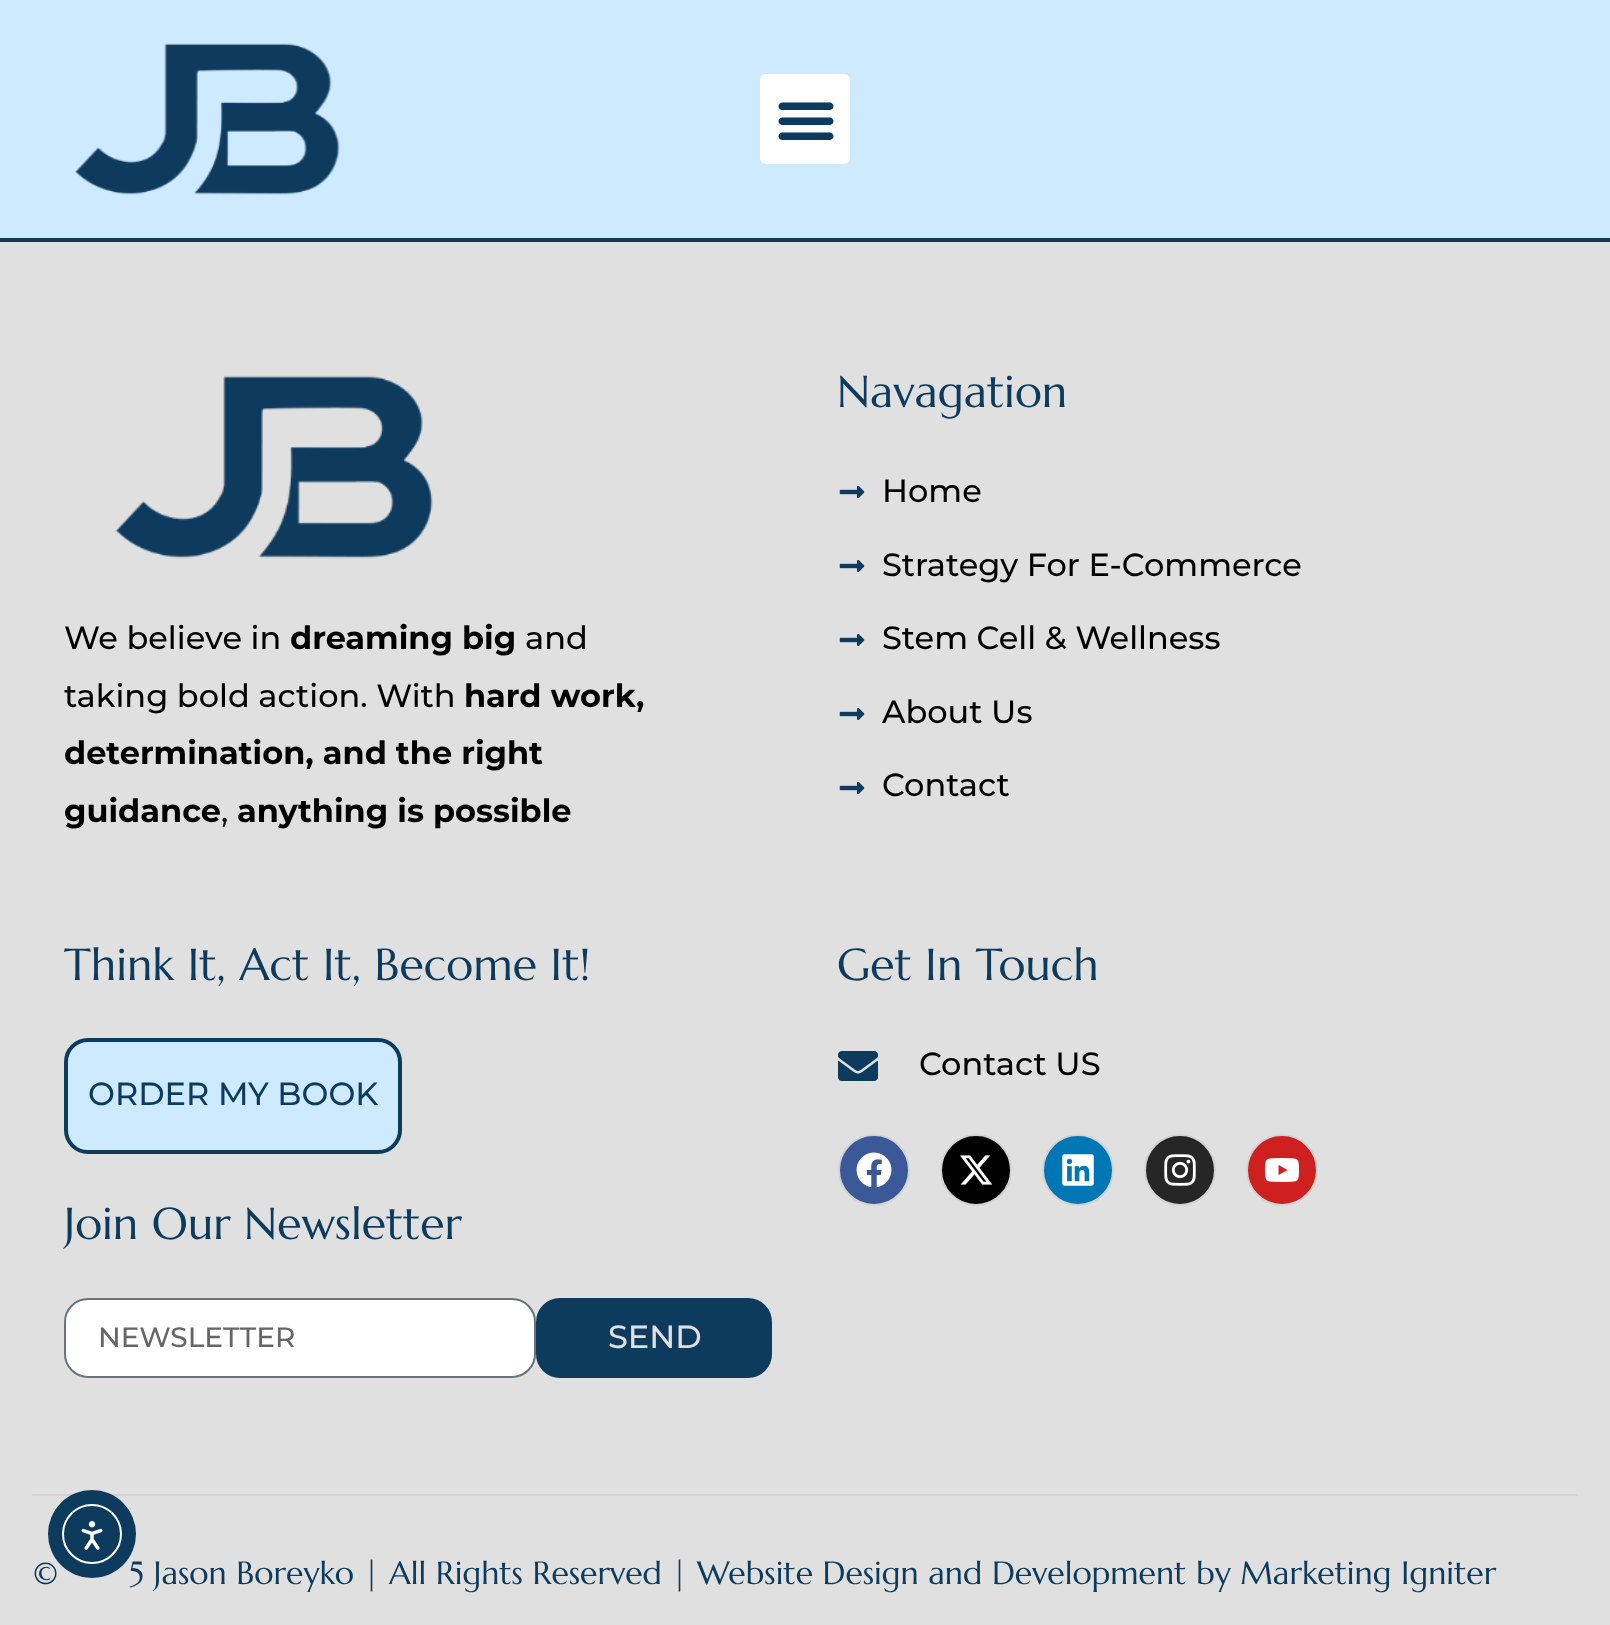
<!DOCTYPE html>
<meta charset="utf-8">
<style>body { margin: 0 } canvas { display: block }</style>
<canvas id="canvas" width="1610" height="1625"></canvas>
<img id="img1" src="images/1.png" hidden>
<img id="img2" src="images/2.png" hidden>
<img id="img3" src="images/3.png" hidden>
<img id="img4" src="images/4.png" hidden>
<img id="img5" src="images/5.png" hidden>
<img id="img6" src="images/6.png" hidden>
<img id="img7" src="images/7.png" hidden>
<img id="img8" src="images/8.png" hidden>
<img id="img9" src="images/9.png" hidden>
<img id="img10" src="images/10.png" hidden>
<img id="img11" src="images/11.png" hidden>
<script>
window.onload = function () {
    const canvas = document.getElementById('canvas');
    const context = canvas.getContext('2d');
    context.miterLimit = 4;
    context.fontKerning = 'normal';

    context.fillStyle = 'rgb(224, 224, 224)';
    context.fillRect(0, 0, 1610, 1625);
    context.fillStyle = 'rgb(206, 234, 255)';
    context.fillRect(0, 0, 1610, 238);
    context.fillStyle = 'rgb(13, 59, 93)';
    context.fillRect(0, 238, 1610, 4);
    context.drawImage(document.getElementById('img1'), 74, 43, 266, 152);
    context.fillStyle = 'rgb(255, 255, 255)';
    context.beginPath();
    context.roundRect(760, 74, 90, 90, 6);
    context.fill();
    context.drawImage(document.getElementById('img2'), 778, 102, 56, 38);
    context.drawImage(document.getElementById('img3'), 115, 375, 318, 184);
    context.drawImage(document.getElementById('img4'), 839, 486, 26, 12);
    context.drawImage(document.getElementById('img4'), 839, 560, 26, 12);
    context.drawImage(document.getElementById('img4'), 839, 634, 26, 12);
    context.drawImage(document.getElementById('img4'), 839, 708, 26, 12);
    context.drawImage(document.getElementById('img4'), 839, 782, 26, 12);
    context.fillStyle = 'rgb(206, 234, 255)';
    context.beginPath();
    context.roundRect(66, 1040, 334, 112, 22);
    context.fill();
    context.strokeStyle = 'rgb(13, 59, 93)';
    context.lineWidth = 4;
    context.stroke();
    context.fillStyle = 'rgb(255, 255, 255)';
    context.beginPath();
    context.roundRect(65, 1299, 470, 78, 23);
    context.fill();
    context.strokeStyle = 'rgb(105, 114, 125)';
    context.lineWidth = 2;
    context.stroke();
    context.fillStyle = 'rgb(13, 59, 93)';
    context.beginPath();
    context.roundRect(536, 1298, 236, 80, 24);
    context.fill();
    context.drawImage(document.getElementById('img5'), 838, 1051, 40, 30);
    context.fillStyle = 'rgb(59, 89, 152)';
    context.beginPath();
    context.arc(874, 1170, 35, 0, 2 * Math.PI);
    context.fill();
    context.strokeStyle = 'rgb(211, 211, 211)';
    context.stroke();
    context.drawImage(document.getElementById('img6'), 856, 1152, 36, 36);
    context.fillStyle = 'rgb(0, 0, 0)';
    context.beginPath();
    context.arc(976, 1170, 35, 0, 2 * Math.PI);
    context.fill();
    context.stroke();
    context.drawImage(document.getElementById('img7'), 960, 1155, 33, 30);
    context.fillStyle = 'rgb(0, 119, 181)';
    context.beginPath();
    context.arc(1078, 1170, 35, 0, 2 * Math.PI);
    context.fill();
    context.stroke();
    context.drawImage(document.getElementById('img8'), 1062, 1154, 32, 32);
    context.fillStyle = 'rgb(38, 38, 38)';
    context.beginPath();
    context.arc(1180, 1170, 35, 0, 2 * Math.PI);
    context.fill();
    context.stroke();
    context.drawImage(document.getElementById('img9'), 1164, 1154, 32, 32);
    context.fillStyle = 'rgb(205, 32, 31)';
    context.beginPath();
    context.arc(1282, 1170, 35, 0, 2 * Math.PI);
    context.fill();
    context.stroke();
    context.drawImage(document.getElementById('img10'), 1264, 1158, 36, 24);
    context.fillStyle = 'rgb(211, 211, 211)';
    context.fillRect(32, 1494, 1546, 2);
    context.fillStyle = 'rgb(13, 59, 93)';
    context.beginPath();
    context.arc(92, 1534, 44, 0, 2 * Math.PI);
    context.fill();
    context.beginPath();
    context.arc(92, 1534, 29, 0, 2 * Math.PI);
    context.strokeStyle = 'rgb(255, 255, 255)';
    context.stroke();
    context.drawImage(document.getElementById('img11'), 81, 1521, 22, 29);
    context.font = '500 32px Montserrat';
    context.fillStyle = 'rgb(0, 0, 0)';
    context.fillText('We believe in', 64, 649);
    context.font = 'bold 32px Montserrat';
    context.fillText('dreaming big', 290, 649);
    context.font = '500 32px Montserrat';
    context.fillText('and', 525, 649);
    context.fillText('taking bold action. With', 64, 707);
    context.font = 'bold 32px Montserrat';
    context.fillText('hard work,', 464, 707);
    context.fillText('determination, and the right', 64, 764);
    context.fillText('guidance', 64, 822);
    context.font = '500 32px Montserrat';
    context.fillText(',', 221, 822);
    context.font = 'bold 32px Montserrat';
    context.fillText('anything is possible', 237, 822);
    context.font = '44.75px Marcellus';
    context.fillStyle = 'rgb(13, 59, 93)';
    context.fillText('Navagation', 837, 407);
    context.font = '500 32px Montserrat';
    context.fillStyle = 'rgb(0, 0, 0)';
    context.fillText('Home', 882, 502);
    context.fillText('Strategy For E-Commerce', 882, 576);
    context.fillText('Stem Cell & Wellness', 882, 649);
    context.fillText('About Us', 882, 723);
    context.fillText('Contact', 882, 796);
    context.font = '44.75px Marcellus';
    context.fillStyle = 'rgb(13, 59, 93)';
    context.fillText('Think It, Act It, Become It!', 64, 980);
    context.font = '500 32px Montserrat';
    context.fillText('ORDER MY BOOK', 88, 1105);
    context.font = '44.75px Marcellus';
    context.fillText('Join Our Newsletter', 64, 1239);
    context.font = '500 28px Montserrat';
    context.fillStyle = 'rgb(102, 102, 102)';
    context.fillText('NEWSLETTER', 98, 1347);
    context.font = '500 32px Montserrat';
    context.fillStyle = 'rgb(224, 224, 224)';
    context.fillText('SEND', 608, 1348);
    context.font = '44.75px Marcellus';
    context.fillStyle = 'rgb(13, 59, 93)';
    context.fillText('Get In Touch', 837, 980);
    context.font = '500 32px Montserrat';
    context.fillStyle = 'rgb(0, 0, 0)';
    context.fillText('Contact US', 919, 1075);
    context.font = '32px Marcellus';
    context.fillStyle = 'rgb(13, 59, 93)';
    context.fillText('©', 32, 1584);
    context.fillText('5 Jason Boreyko | All Rights Reserved | Website Design and Development by Marketing Igniter', 129, 1584);
};
</script>
